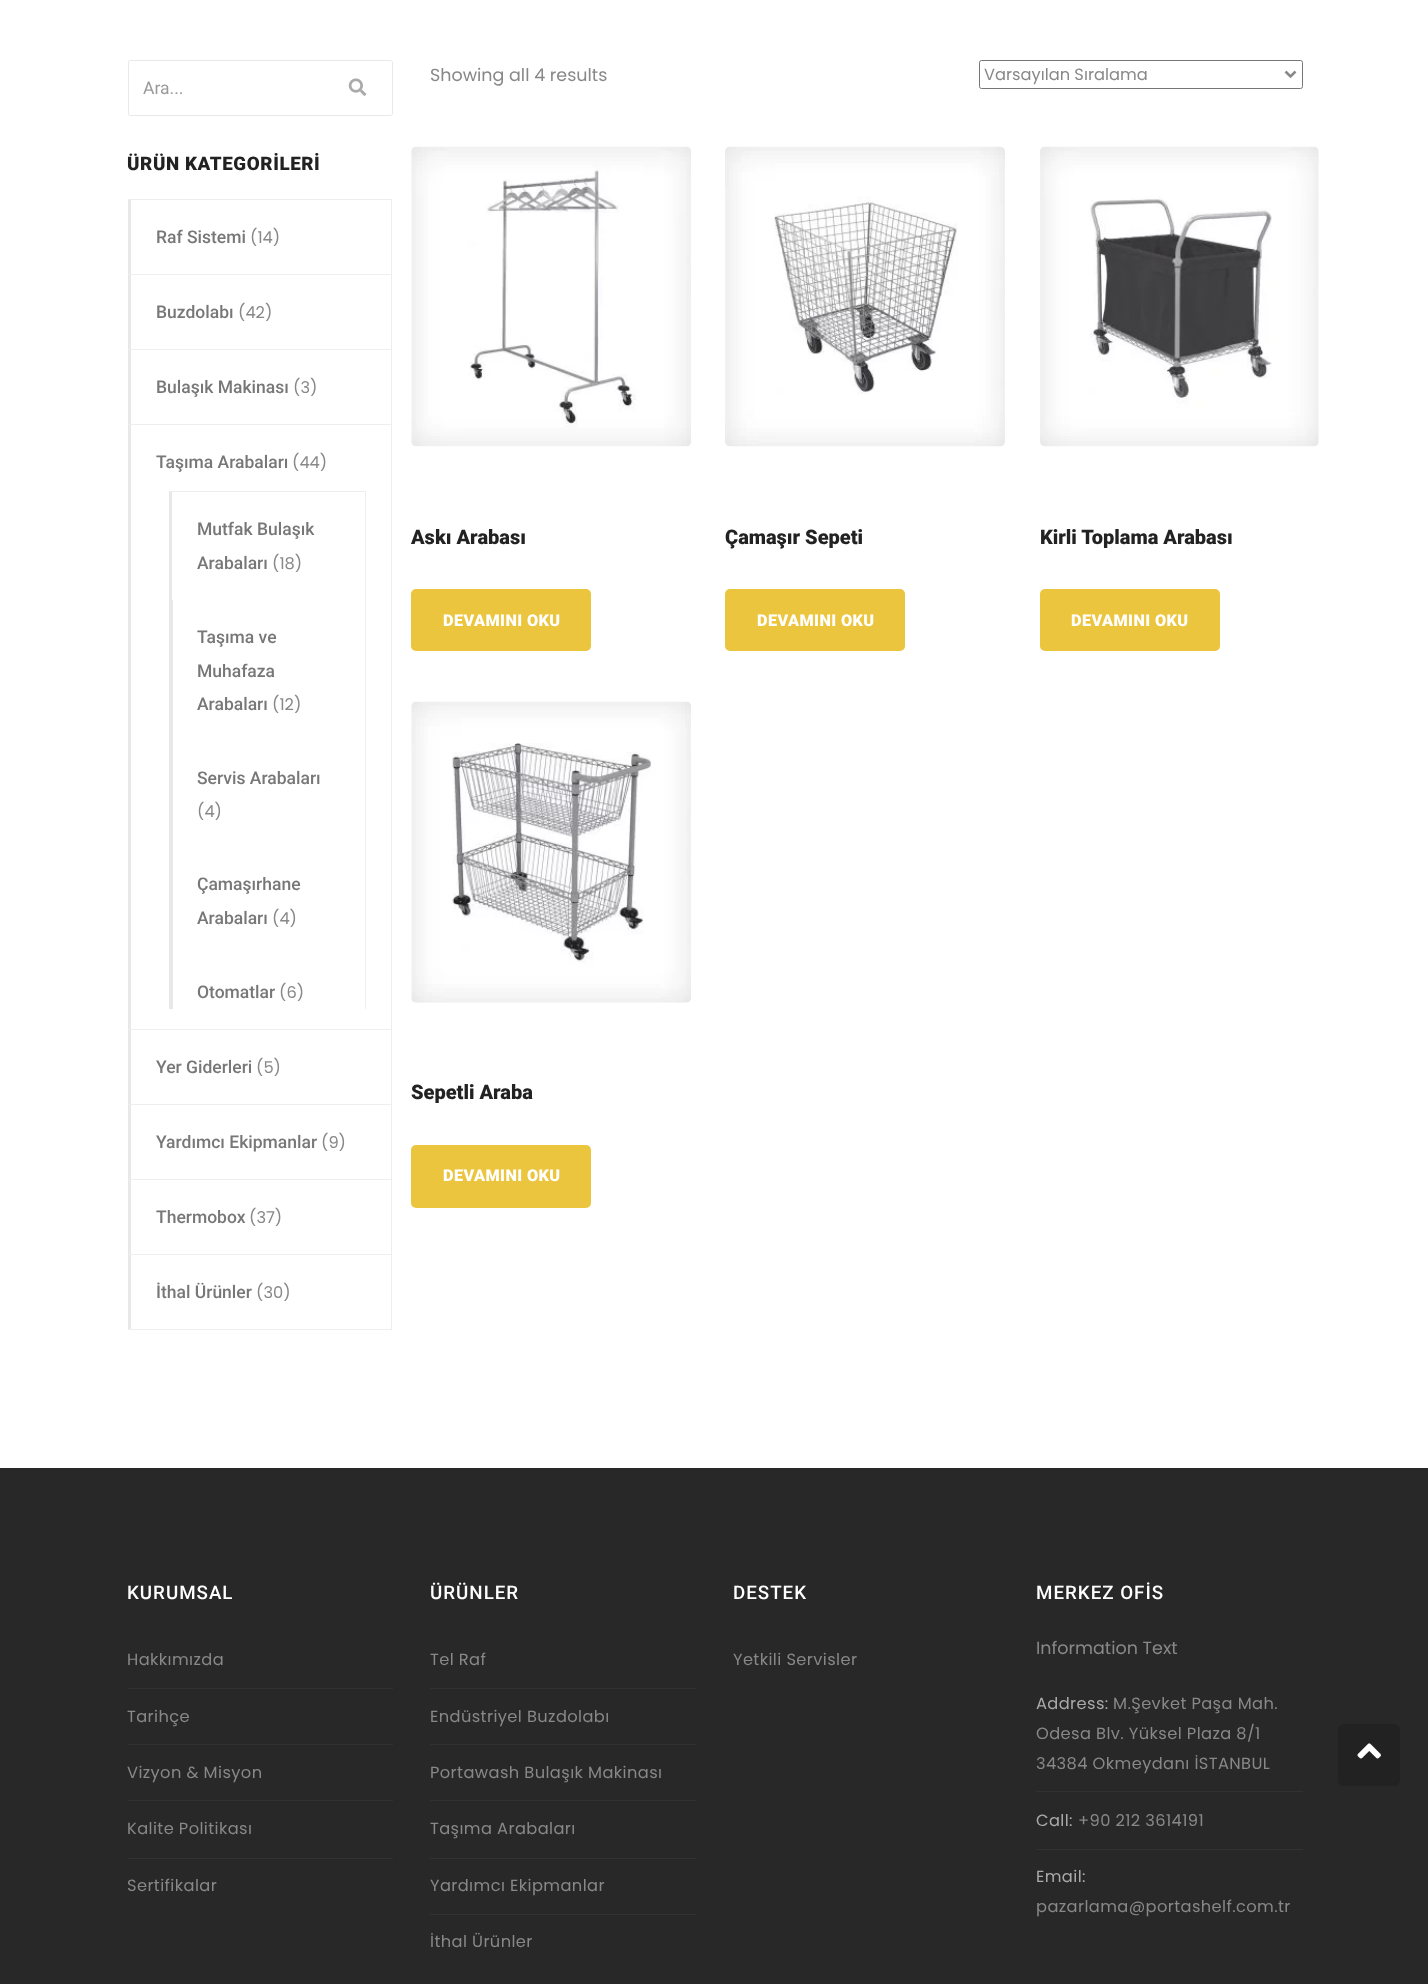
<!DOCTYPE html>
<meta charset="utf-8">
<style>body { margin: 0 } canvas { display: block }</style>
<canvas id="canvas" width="1428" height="1984"></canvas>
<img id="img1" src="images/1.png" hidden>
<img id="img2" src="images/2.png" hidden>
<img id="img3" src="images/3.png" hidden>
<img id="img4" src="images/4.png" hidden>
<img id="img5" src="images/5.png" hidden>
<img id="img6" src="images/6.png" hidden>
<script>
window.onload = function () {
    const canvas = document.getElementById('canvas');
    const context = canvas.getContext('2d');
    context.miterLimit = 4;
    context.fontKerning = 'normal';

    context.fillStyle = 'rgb(255, 255, 255)';
    context.fillRect(0, 0, 1428, 1984);
    context.beginPath();
    context.roundRect(128.5, 60.5, 264, 55, 2);
    context.strokeStyle = 'rgb(232, 232, 232)';
    context.stroke();
    context.drawImage(document.getElementById('img1'), 348, 78, 19, 18);
    context.fillStyle = 'rgb(238, 238, 238)';
    context.beginPath();
    context.moveTo(128, 199);
    context.lineTo(392, 199);
    context.lineTo(391, 200);
    context.lineTo(131, 200);
    context.closePath();
    context.fill();
    context.fillRect(391, 199, 1, 1131);
    context.beginPath();
    context.moveTo(392, 275);
    context.lineTo(128, 275);
    context.lineTo(131, 274);
    context.lineTo(391, 274);
    context.closePath();
    context.fill();
    context.fillStyle = 'rgb(232, 232, 232)';
    context.beginPath();
    context.moveTo(128, 275);
    context.lineTo(128, 199);
    context.lineTo(131, 200);
    context.lineTo(131, 274);
    context.closePath();
    context.fill();
    context.fillStyle = 'rgb(238, 238, 238)';
    context.beginPath();
    context.moveTo(392, 350);
    context.lineTo(128, 350);
    context.lineTo(131, 349);
    context.lineTo(391, 349);
    context.closePath();
    context.fill();
    context.fillStyle = 'rgb(232, 232, 232)';
    context.beginPath();
    context.moveTo(128, 350);
    context.lineTo(128, 275);
    context.lineTo(131, 275);
    context.lineTo(131, 349);
    context.closePath();
    context.fill();
    context.fillStyle = 'rgb(238, 238, 238)';
    context.beginPath();
    context.moveTo(392, 425);
    context.lineTo(128, 425);
    context.lineTo(131, 424);
    context.lineTo(391, 424);
    context.closePath();
    context.fill();
    context.fillStyle = 'rgb(232, 232, 232)';
    context.beginPath();
    context.moveTo(128, 425);
    context.lineTo(128, 350);
    context.lineTo(131, 350);
    context.lineTo(131, 424);
    context.closePath();
    context.fill();
    context.fillStyle = 'rgb(238, 238, 238)';
    context.beginPath();
    context.moveTo(392, 1030);
    context.lineTo(128, 1030);
    context.lineTo(131, 1029);
    context.lineTo(391, 1029);
    context.closePath();
    context.fill();
    context.fillStyle = 'rgb(232, 232, 232)';
    context.beginPath();
    context.moveTo(128, 1030);
    context.lineTo(128, 425);
    context.lineTo(131, 425);
    context.lineTo(131, 1029);
    context.closePath();
    context.fill();
    context.fillStyle = 'rgb(238, 238, 238)';
    context.beginPath();
    context.moveTo(169, 491);
    context.lineTo(366, 491);
    context.lineTo(365, 492);
    context.lineTo(172, 492);
    context.closePath();
    context.fill();
    context.fillRect(365, 491, 1, 518);
    context.fillStyle = 'rgb(232, 232, 232)';
    context.beginPath();
    context.moveTo(169, 600);
    context.lineTo(169, 491);
    context.lineTo(172, 492);
    context.lineTo(172, 600);
    context.closePath();
    context.fill();
    context.fillRect(169, 600, 4, 409);
    context.fillStyle = 'rgb(238, 238, 238)';
    context.beginPath();
    context.moveTo(392, 1105);
    context.lineTo(128, 1105);
    context.lineTo(131, 1104);
    context.lineTo(391, 1104);
    context.closePath();
    context.fill();
    context.fillStyle = 'rgb(232, 232, 232)';
    context.beginPath();
    context.moveTo(128, 1105);
    context.lineTo(128, 1030);
    context.lineTo(131, 1030);
    context.lineTo(131, 1104);
    context.closePath();
    context.fill();
    context.fillStyle = 'rgb(238, 238, 238)';
    context.beginPath();
    context.moveTo(392, 1180);
    context.lineTo(128, 1180);
    context.lineTo(131, 1179);
    context.lineTo(391, 1179);
    context.closePath();
    context.fill();
    context.fillStyle = 'rgb(232, 232, 232)';
    context.beginPath();
    context.moveTo(128, 1180);
    context.lineTo(128, 1105);
    context.lineTo(131, 1105);
    context.lineTo(131, 1179);
    context.closePath();
    context.fill();
    context.fillStyle = 'rgb(238, 238, 238)';
    context.beginPath();
    context.moveTo(392, 1255);
    context.lineTo(128, 1255);
    context.lineTo(131, 1254);
    context.lineTo(391, 1254);
    context.closePath();
    context.fill();
    context.fillStyle = 'rgb(232, 232, 232)';
    context.beginPath();
    context.moveTo(128, 1255);
    context.lineTo(128, 1180);
    context.lineTo(131, 1180);
    context.lineTo(131, 1254);
    context.closePath();
    context.fill();
    context.fillStyle = 'rgb(238, 238, 238)';
    context.beginPath();
    context.moveTo(392, 1330);
    context.lineTo(128, 1330);
    context.lineTo(131, 1329);
    context.lineTo(391, 1329);
    context.closePath();
    context.fill();
    context.fillStyle = 'rgb(232, 232, 232)';
    context.beginPath();
    context.moveTo(128, 1330);
    context.lineTo(128, 1255);
    context.lineTo(131, 1255);
    context.lineTo(131, 1329);
    context.closePath();
    context.fill();
    context.beginPath();
    context.roundRect(979.5, 60.5, 323, 28, 2);
    context.strokeStyle = 'rgb(118, 118, 118)';
    context.stroke();
    context.beginPath();
    context.moveTo(1285.5, 71.5);
    context.lineTo(1290.5, 76.5);
    context.lineTo(1295.5, 71.5);
    context.strokeStyle = 'rgb(136, 136, 136)';
    context.lineWidth = 2.5;
    context.stroke();
    context.drawImage(document.getElementById('img2'), 411, 146, 280, 301);
    context.fillStyle = 'rgb(236, 197, 63)';
    context.beginPath();
    context.roundRect(411, 589, 180, 62, 5);
    context.fill();
    context.drawImage(document.getElementById('img3'), 725, 146, 280, 301);
    context.beginPath();
    context.roundRect(725, 589, 180, 62, 5);
    context.fill();
    context.drawImage(document.getElementById('img4'), 1040, 146, 279, 301);
    context.beginPath();
    context.roundRect(1040, 589, 180, 62, 5);
    context.fill();
    context.drawImage(document.getElementById('img5'), 411, 701, 280, 302);
    context.beginPath();
    context.roundRect(411, 1145, 180, 63, 5);
    context.fill();
    context.fillStyle = 'rgb(40, 40, 40)';
    context.fillRect(0, 1468, 1428, 516);
    context.fillStyle = 'rgb(50, 50, 50)';
    context.fillRect(128, 1688, 265, 1);
    context.fillRect(128, 1744, 265, 1);
    context.fillRect(128, 1800, 265, 1);
    context.fillRect(128, 1858, 265, 1);
    context.fillRect(430, 1688, 266, 1);
    context.fillRect(430, 1744, 266, 1);
    context.fillRect(430, 1800, 266, 1);
    context.fillRect(430, 1858, 266, 1);
    context.fillRect(430, 1914, 266, 1);
    context.fillRect(1036, 1791, 267, 1);
    context.fillRect(1036, 1849, 267, 1);
    context.fillStyle = 'rgb(34, 34, 34)';
    context.beginPath();
    context.roundRect(1338, 1724, 62, 62, 6);
    context.fill();
    context.drawImage(document.getElementById('img6'), 1357, 1743, 24, 16);
    context.font = '17.5px Roboto';
    context.fillStyle = 'rgb(153, 153, 153)';
    context.fillText('Ara...', 143, 94);
    context.letterSpacing = '0.6px';
    context.font = '900 18.75px Roboto';
    context.fillStyle = 'rgb(34, 34, 34)';
    context.fillText('ÜRÜN KATEGORİLERİ', 127, 170);
    context.letterSpacing = '0px';
    context.font = '500 17.5px Roboto';
    context.fillStyle = 'rgb(119, 119, 119)';
    context.fillText('Raf Sistemi', 156, 243);
    context.font = '16.25px Poppins';
    context.fillStyle = 'rgb(136, 136, 136)';
    context.fillText('(14)', 250, 243);
    context.font = '500 17.5px Roboto';
    context.fillStyle = 'rgb(119, 119, 119)';
    context.fillText('Buzdolabı', 156, 318);
    context.font = '16.25px Poppins';
    context.fillStyle = 'rgb(136, 136, 136)';
    context.fillText('(42)', 238, 318);
    context.font = '500 17.5px Roboto';
    context.fillStyle = 'rgb(119, 119, 119)';
    context.fillText('Bulaşık Makinası', 156, 393);
    context.font = '16.25px Poppins';
    context.fillStyle = 'rgb(136, 136, 136)';
    context.fillText('(3)', 293, 393);
    context.font = '500 17.5px Roboto';
    context.fillStyle = 'rgb(119, 119, 119)';
    context.fillText('Taşıma Arabaları', 156, 468);
    context.font = '16.25px Poppins';
    context.fillStyle = 'rgb(136, 136, 136)';
    context.fillText('(44)', 292, 468);
    context.font = '500 17.5px Roboto';
    context.fillStyle = 'rgb(119, 119, 119)';
    context.fillText('Mutfak Bulaşık', 197, 535);
    context.fillText('Arabaları', 197, 569);
    context.font = '16.25px Poppins';
    context.fillStyle = 'rgb(136, 136, 136)';
    context.fillText('(18)', 272, 569);
    context.font = '500 17.5px Roboto';
    context.fillStyle = 'rgb(119, 119, 119)';
    context.fillText('Taşıma ve', 197, 643);
    context.fillText('Muhafaza', 197, 677);
    context.fillText('Arabaları', 197, 710);
    context.font = '16.25px Poppins';
    context.fillStyle = 'rgb(136, 136, 136)';
    context.fillText('(12)', 272, 710);
    context.font = '500 17.5px Roboto';
    context.fillStyle = 'rgb(119, 119, 119)';
    context.fillText('Servis Arabaları', 197, 784);
    context.font = '16.25px Poppins';
    context.fillStyle = 'rgb(136, 136, 136)';
    context.fillText('(4)', 197, 817);
    context.font = '500 17.5px Roboto';
    context.fillStyle = 'rgb(119, 119, 119)';
    context.fillText('Çamaşırhane', 197, 890);
    context.fillText('Arabaları', 197, 924);
    context.font = '16.25px Poppins';
    context.fillStyle = 'rgb(136, 136, 136)';
    context.fillText('(4)', 272, 924);
    context.font = '500 17.5px Roboto';
    context.fillStyle = 'rgb(119, 119, 119)';
    context.fillText('Otomatlar', 197, 998);
    context.font = '16.25px Poppins';
    context.fillStyle = 'rgb(136, 136, 136)';
    context.fillText('(6)', 279, 998);
    context.font = '500 17.5px Roboto';
    context.fillStyle = 'rgb(119, 119, 119)';
    context.fillText('Yer Giderleri', 156, 1073);
    context.font = '16.25px Poppins';
    context.fillStyle = 'rgb(136, 136, 136)';
    context.fillText('(5)', 256, 1073);
    context.font = '500 17.5px Roboto';
    context.fillStyle = 'rgb(119, 119, 119)';
    context.fillText('Yardımcı Ekipmanlar', 156, 1148);
    context.font = '16.25px Poppins';
    context.fillStyle = 'rgb(136, 136, 136)';
    context.fillText('(9)', 321, 1148);
    context.font = '500 17.5px Roboto';
    context.fillStyle = 'rgb(119, 119, 119)';
    context.fillText('Thermobox', 156, 1223);
    context.font = '16.25px Poppins';
    context.fillStyle = 'rgb(136, 136, 136)';
    context.fillText('(37)', 249, 1223);
    context.font = '500 17.5px Roboto';
    context.fillStyle = 'rgb(119, 119, 119)';
    context.fillText('İthal Ürünler', 156, 1298);
    context.font = '16.25px Poppins';
    context.fillStyle = 'rgb(136, 136, 136)';
    context.fillText('(30)', 256, 1298);
    context.font = '17.5px Poppins';
    context.fillText('Showing all 4 results', 430, 81);
    context.font = '16.25px Poppins';
    context.fillText('Varsayılan Sıralama', 984, 80);
    context.font = '900 20px Roboto';
    context.fillStyle = 'rgb(34, 34, 34)';
    context.fillText('Askı Arabası', 411, 544);
    context.letterSpacing = '0.4px';
    context.font = '900 16.25px Roboto';
    context.fillStyle = 'rgb(255, 255, 255)';
    context.fillText('DEVAMINI OKU', 443, 626);
    context.letterSpacing = '0px';
    context.font = '900 20px Roboto';
    context.fillStyle = 'rgb(34, 34, 34)';
    context.fillText('Çamaşır Sepeti', 725, 544);
    context.letterSpacing = '0.4px';
    context.font = '900 16.25px Roboto';
    context.fillStyle = 'rgb(255, 255, 255)';
    context.fillText('DEVAMINI OKU', 757, 626);
    context.letterSpacing = '0px';
    context.font = '900 20px Roboto';
    context.fillStyle = 'rgb(34, 34, 34)';
    context.fillText('Kirli Toplama Arabası', 1040, 544);
    context.letterSpacing = '0.4px';
    context.font = '900 16.25px Roboto';
    context.fillStyle = 'rgb(255, 255, 255)';
    context.fillText('DEVAMINI OKU', 1071, 626);
    context.letterSpacing = '0px';
    context.font = '900 20px Roboto';
    context.fillStyle = 'rgb(34, 34, 34)';
    context.fillText('Sepetli Araba', 411, 1099);
    context.letterSpacing = '0.4px';
    context.font = '900 16.25px Roboto';
    context.fillStyle = 'rgb(255, 255, 255)';
    context.fillText('DEVAMINI OKU', 443, 1181);
    context.letterSpacing = '1px';
    context.font = '500 18.75px Roboto';
    context.fillText('KURUMSAL', 127, 1599);
    context.letterSpacing = '0.4px';
    context.font = '16.25px Poppins';
    context.fillStyle = 'rgb(136, 136, 136)';
    context.fillText('Hakkımızda', 127, 1665);
    context.fillText('Tarihçe', 127, 1722);
    context.fillText('Vizyon & Misyon', 127, 1778);
    context.fillText('Kalite Politikası', 127, 1834);
    context.fillText('Sertifikalar', 127, 1891);
    context.letterSpacing = '1px';
    context.font = '500 18.75px Roboto';
    context.fillStyle = 'rgb(255, 255, 255)';
    context.fillText('ÜRÜNLER', 430, 1599);
    context.letterSpacing = '0.4px';
    context.font = '16.25px Poppins';
    context.fillStyle = 'rgb(136, 136, 136)';
    context.fillText('Tel Raf', 430, 1665);
    context.fillText('Endüstriyel Buzdolabı', 430, 1722);
    context.fillText('Portawash Bulaşık Makinası', 430, 1778);
    context.fillText('Taşıma Arabaları', 430, 1834);
    context.fillText('Yardımcı Ekipmanlar', 430, 1891);
    context.fillText('İthal Ürünler', 430, 1947);
    context.letterSpacing = '1px';
    context.font = '500 18.75px Roboto';
    context.fillStyle = 'rgb(255, 255, 255)';
    context.fillText('DESTEK', 733, 1599);
    context.letterSpacing = '0.4px';
    context.font = '16.25px Poppins';
    context.fillStyle = 'rgb(136, 136, 136)';
    context.fillText('Yetkili Servisler', 733, 1665);
    context.letterSpacing = '1px';
    context.font = '500 18.75px Roboto';
    context.fillStyle = 'rgb(255, 255, 255)';
    context.fillText('MERKEZ OFİS', 1036, 1599);
    context.letterSpacing = '0px';
    context.font = '17.5px Poppins';
    context.fillStyle = 'rgb(136, 136, 136)';
    context.fillText('Information Text', 1036, 1654);
    context.letterSpacing = '0.4px';
    context.font = '16.25px Poppins';
    context.fillStyle = 'rgb(170, 170, 170)';
    context.fillText('Address:', 1036, 1709);
    context.fillStyle = 'rgb(136, 136, 136)';
    context.fillText('M.Şevket Paşa Mah.', 1113, 1709);
    context.fillText('Odesa Blv. Yüksel Plaza 8/1', 1036, 1739);
    context.fillText('34384 Okmeydanı İSTANBUL', 1036, 1769);
    context.fillStyle = 'rgb(170, 170, 170)';
    context.fillText('Call:', 1036, 1826);
    context.fillStyle = 'rgb(136, 136, 136)';
    context.fillText('+90 212 3614191', 1078, 1826);
    context.fillStyle = 'rgb(170, 170, 170)';
    context.fillText('Email:', 1036, 1882);
    context.fillStyle = 'rgb(136, 136, 136)';
    context.fillText('pazarlama@portashelf.com.tr', 1036, 1912);
};
</script>
